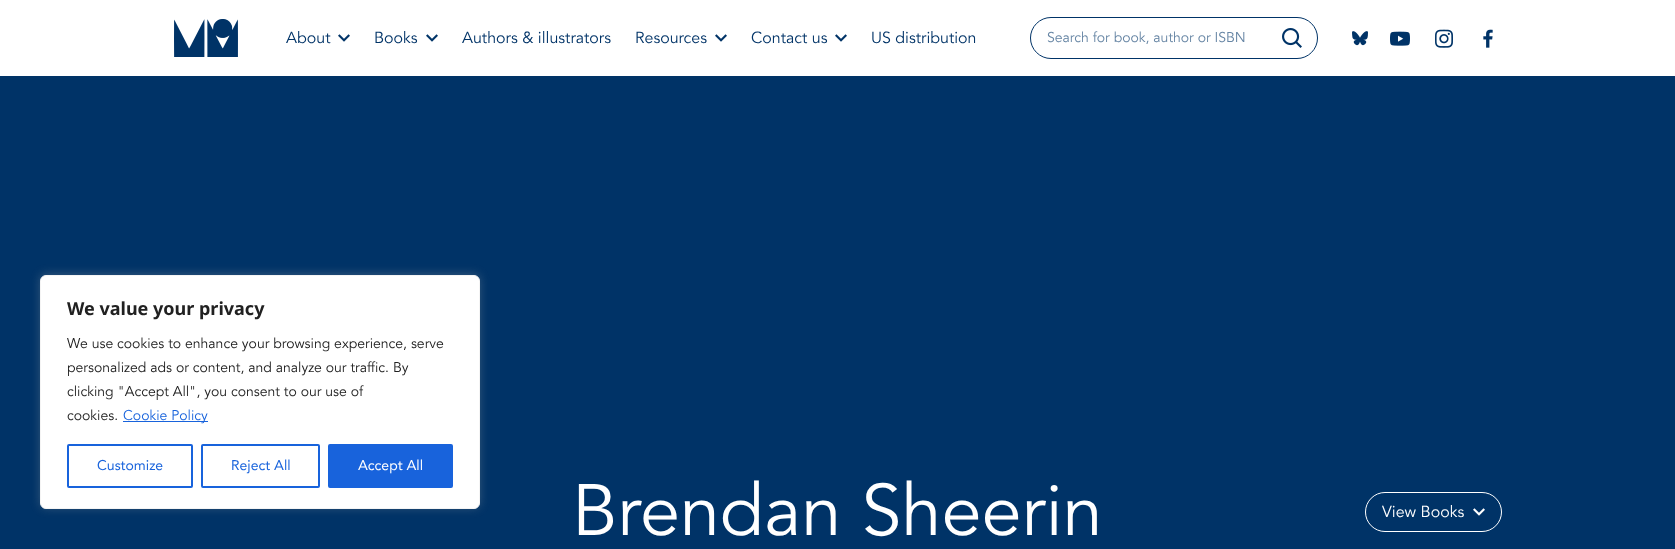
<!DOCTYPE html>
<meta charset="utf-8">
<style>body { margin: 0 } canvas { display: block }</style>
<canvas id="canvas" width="1675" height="549"></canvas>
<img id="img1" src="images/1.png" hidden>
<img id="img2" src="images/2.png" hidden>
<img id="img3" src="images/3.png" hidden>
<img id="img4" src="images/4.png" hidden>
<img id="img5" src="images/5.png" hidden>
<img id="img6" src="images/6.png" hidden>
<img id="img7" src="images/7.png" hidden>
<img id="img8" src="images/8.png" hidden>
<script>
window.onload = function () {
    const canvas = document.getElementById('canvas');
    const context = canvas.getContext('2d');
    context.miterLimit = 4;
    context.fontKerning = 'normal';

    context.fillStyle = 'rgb(255, 255, 255)';
    context.fillRect(0, 0, 1675, 549);
    context.drawImage(document.getElementById('img1'), 174, 19, 64, 38);
    context.drawImage(document.getElementById('img2'), 338, 34, 12, 8);
    context.drawImage(document.getElementById('img2'), 426, 34, 12, 8);
    context.drawImage(document.getElementById('img2'), 715, 34, 12, 8);
    context.drawImage(document.getElementById('img2'), 835, 34, 12, 8);
    context.beginPath();
    context.roundRect(1030.5, 17.5, 287, 41, 20.5);
    context.strokeStyle = 'rgb(0, 51, 103)';
    context.stroke();
    context.drawImage(document.getElementById('img3'), 1282, 28, 20, 20);
    context.drawImage(document.getElementById('img4'), 1352, 31, 16, 15);
    context.drawImage(document.getElementById('img5'), 1390, 31, 20, 15);
    context.drawImage(document.getElementById('img6'), 1435, 29, 18, 19);
    context.drawImage(document.getElementById('img7'), 1483, 29, 10, 19);
    context.fillStyle = 'rgb(0, 51, 103)';
    context.fillRect(0, 76, 1675, 473);
    context.fillStyle = 'rgba(172, 171, 171, 0.3)';
    context.filter = 'blur(5px)';
    context.beginPath();
    context.roundRect(40, 274, 440, 234, 6);
    context.fill();
    context.filter = 'none';
    context.fillStyle = 'rgb(255, 255, 255)';
    context.beginPath();
    context.roundRect(40.5, 275.5, 439, 233, 5.5);
    context.fill();
    context.strokeStyle = 'rgb(244, 244, 244)';
    context.stroke();
    context.fillStyle = 'rgb(24, 99, 220)';
    context.fillRect(123, 421, 85, 1);
    context.beginPath();
    context.roundRect(68, 445, 124, 42, 1);
    context.strokeStyle = 'rgb(24, 99, 220)';
    context.lineWidth = 2;
    context.stroke();
    context.beginPath();
    context.roundRect(202, 445, 117, 42, 1);
    context.stroke();
    context.beginPath();
    context.roundRect(329, 445, 123, 42, 1);
    context.fill();
    context.stroke();
    context.beginPath();
    context.roundRect(1365.5, 492.5, 136, 39, 19.5);
    context.strokeStyle = 'rgb(255, 255, 255)';
    context.lineWidth = 1;
    context.stroke();
    context.drawImage(document.getElementById('img8'), 1473, 508, 12, 8);
    context.font = '16px Avenir';
    context.fillStyle = 'rgb(0, 51, 103)';
    context.fillText('About', 286, 43);
    context.fillText('Books', 374, 43);
    context.fillText('Authors & illustrators', 462, 43);
    context.fillText('Resources', 635, 43);
    context.fillText('Contact us', 751, 43);
    context.fillText('US distribution', 871, 43);
    context.font = '14px Avenir';
    context.fillStyle = 'rgb(102, 133, 164)';
    context.fillText('Search for book, author or ISBN', 1047, 42);
    context.font = 'bold 18px Noto Sans';
    context.fillStyle = 'rgb(33, 33, 33)';
    context.fillText('We value your privacy', 67, 315);
    context.font = '14px Avenir';
    context.fillText('We use cookies to enhance your browsing experience, serve', 67, 348);
    context.fillText('personalized ads or content, and analyze our traffic. By', 67, 372);
    context.fillText('clicking "Accept All", you consent to our use of', 67, 396);
    context.fillText('cookies.', 67, 420);
    context.fillStyle = 'rgb(24, 99, 220)';
    context.fillText('Cookie Policy', 123, 420);
    context.font = '14px "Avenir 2"';
    context.fillText('Customize', 97, 470);
    context.fillText('Reject All', 231, 470);
    context.fillStyle = 'rgb(255, 255, 255)';
    context.fillText('Accept All', 358, 470);
    context.font = '72px Avenir';
    context.fillText('Brendan Sheerin', 572, 535);
    context.font = '16px Avenir';
    context.fillText('View Books', 1382, 517);
};
</script>
